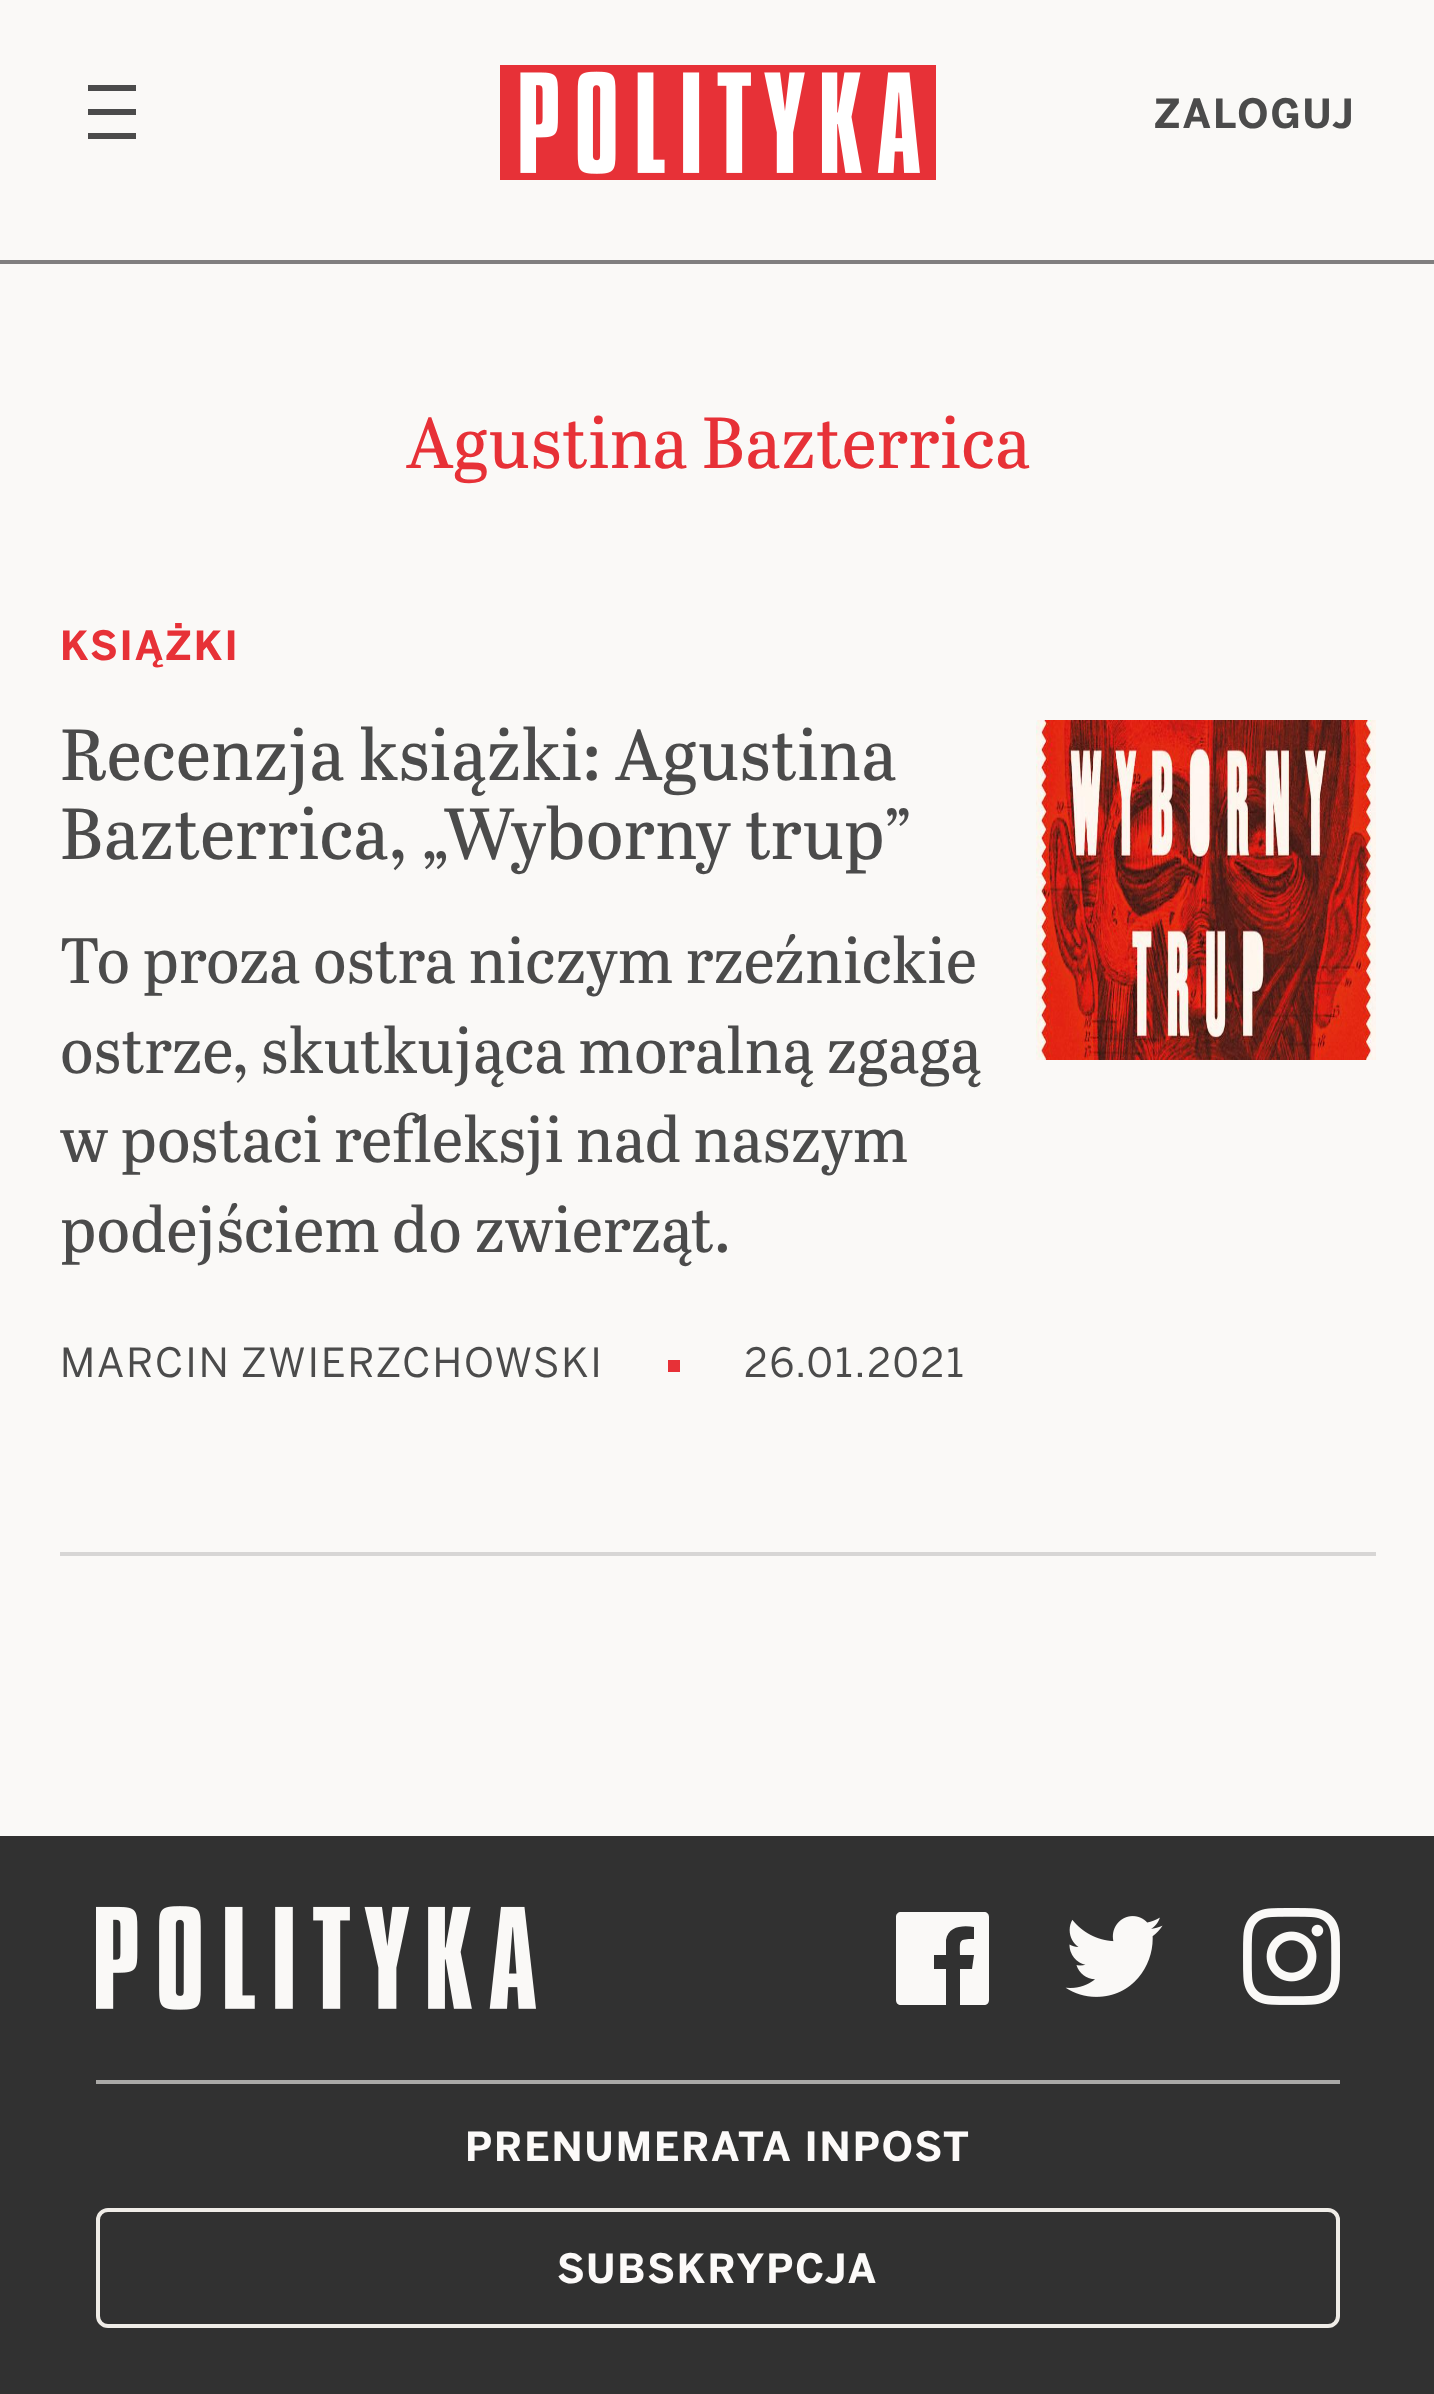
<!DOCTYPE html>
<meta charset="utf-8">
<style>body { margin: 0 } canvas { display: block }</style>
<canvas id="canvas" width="1434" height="2394"></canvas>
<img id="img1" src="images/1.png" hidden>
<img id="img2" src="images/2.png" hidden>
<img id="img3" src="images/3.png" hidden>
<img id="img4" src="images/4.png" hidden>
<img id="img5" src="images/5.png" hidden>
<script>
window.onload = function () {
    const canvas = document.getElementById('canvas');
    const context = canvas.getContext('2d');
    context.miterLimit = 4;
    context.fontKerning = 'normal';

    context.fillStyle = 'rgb(250, 249, 247)';
    context.fillRect(0, 0, 1434, 2394);
    context.fillStyle = 'rgb(128, 127, 127)';
    context.fillRect(0, 260, 1434, 4);
    context.beginPath();
    context.moveTo(88, 88);
    context.lineTo(136, 88);
    context.moveTo(88, 112);
    context.lineTo(136, 112);
    context.moveTo(88, 136);
    context.lineTo(136, 136);
    context.strokeStyle = 'rgb(75, 75, 75)';
    context.lineWidth = 6;
    context.stroke();
    context.drawImage(document.getElementById('img1'), 500, 65, 436, 115);
    context.fillStyle = 'rgb(231, 49, 55)';
    context.fillRect(668, 1360, 12, 12);
    context.drawImage(document.getElementById('img2'), 1036, 720, 340, 340);
    context.fillStyle = 'rgb(215, 214, 213)';
    context.fillRect(60, 1552, 1316, 4);
    context.fillStyle = 'rgb(49, 49, 49)';
    context.fillRect(0, 1836, 1434, 558);
    context.drawImage(document.getElementById('img3'), 96, 1906, 440, 104);
    context.fillStyle = 'rgb(250, 249, 247)';
    context.beginPath();
    context.moveTo(984, 1912);
    context.lineTo(901, 1912);
    context.bezierCurveTo(898, 1912, 896, 1914, 896, 1917);
    context.lineTo(896, 2000);
    context.bezierCurveTo(896, 2003, 898, 2005, 901, 2005);
    context.lineTo(946, 2005);
    context.lineTo(946, 1969);
    context.lineTo(934, 1969);
    context.lineTo(934, 1955);
    context.lineTo(946, 1955);
    context.lineTo(946, 1940);
    context.bezierCurveTo(948, 1926, 963, 1925, 974, 1927);
    context.lineTo(974, 1939);
    context.bezierCurveTo(958, 1939, 960, 1940, 960, 1955);
    context.lineTo(974, 1955);
    context.lineTo(972, 1969);
    context.lineTo(960, 1969);
    context.lineTo(960, 2005);
    context.lineTo(984, 2005);
    context.bezierCurveTo(987, 2005, 989, 2003, 989, 2000);
    context.lineTo(989, 1917);
    context.bezierCurveTo(989, 1914, 987, 1912, 984, 1912);
    context.closePath();
    context.fill();
    context.drawImage(document.getElementById('img4'), 1065, 1916, 98, 81);
    context.drawImage(document.getElementById('img5'), 1243, 1908, 97, 97);
    context.fillStyle = 'rgb(170, 169, 167)';
    context.fillRect(96, 2080, 1244, 4);
    context.beginPath();
    context.roundRect(98, 2210, 1240, 116, 10);
    context.strokeStyle = 'rgb(239, 236, 231)';
    context.lineWidth = 4;
    context.stroke();
    context.letterSpacing = '2px';
    context.font = 'bold 40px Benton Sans';
    context.fillStyle = 'rgb(75, 75, 75)';
    context.fillText('ZALOGUJ', 1154, 128);
    context.letterSpacing = '0px';
    context.font = '72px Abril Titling';
    context.fillStyle = 'rgb(231, 49, 55)';
    context.fillText('Agustina Bazterrica', 406, 468);
    context.letterSpacing = '2px';
    context.font = 'bold 40px Benton Sans';
    context.fillText('KSIĄŻKI', 60, 660);
    context.letterSpacing = '0px';
    context.font = '72px Abril Titling';
    context.fillStyle = 'rgb(75, 75, 75)';
    context.fillText('Recenzja książki: Agustina', 60, 780);
    context.fillText('Bazterrica, „Wyborny trup”', 60, 859);
    context.font = '64px Abril Titling';
    context.fillText('To proza ostra niczym rzeźnickie', 60, 983);
    context.fillText('ostrze, skutkująca moralną zgagą', 60, 1073);
    context.fillText('w postaci refleksji nad naszym', 60, 1162);
    context.fillText('podejściem do zwierząt.', 60, 1252);
    context.letterSpacing = '2px';
    context.font = '40px Benton Sans';
    context.fillText('MARCIN ZWIERZCHOWSKI', 60, 1377);
    context.fillText('26.01.2021', 744, 1377);
    context.font = 'bold 40px Benton Sans';
    context.fillStyle = 'rgb(252, 250, 249)';
    context.fillText('PRENUMERATA INPOST', 465, 2161);
    context.fillText('SUBSKRYPCJA', 557, 2283);
};
</script>
